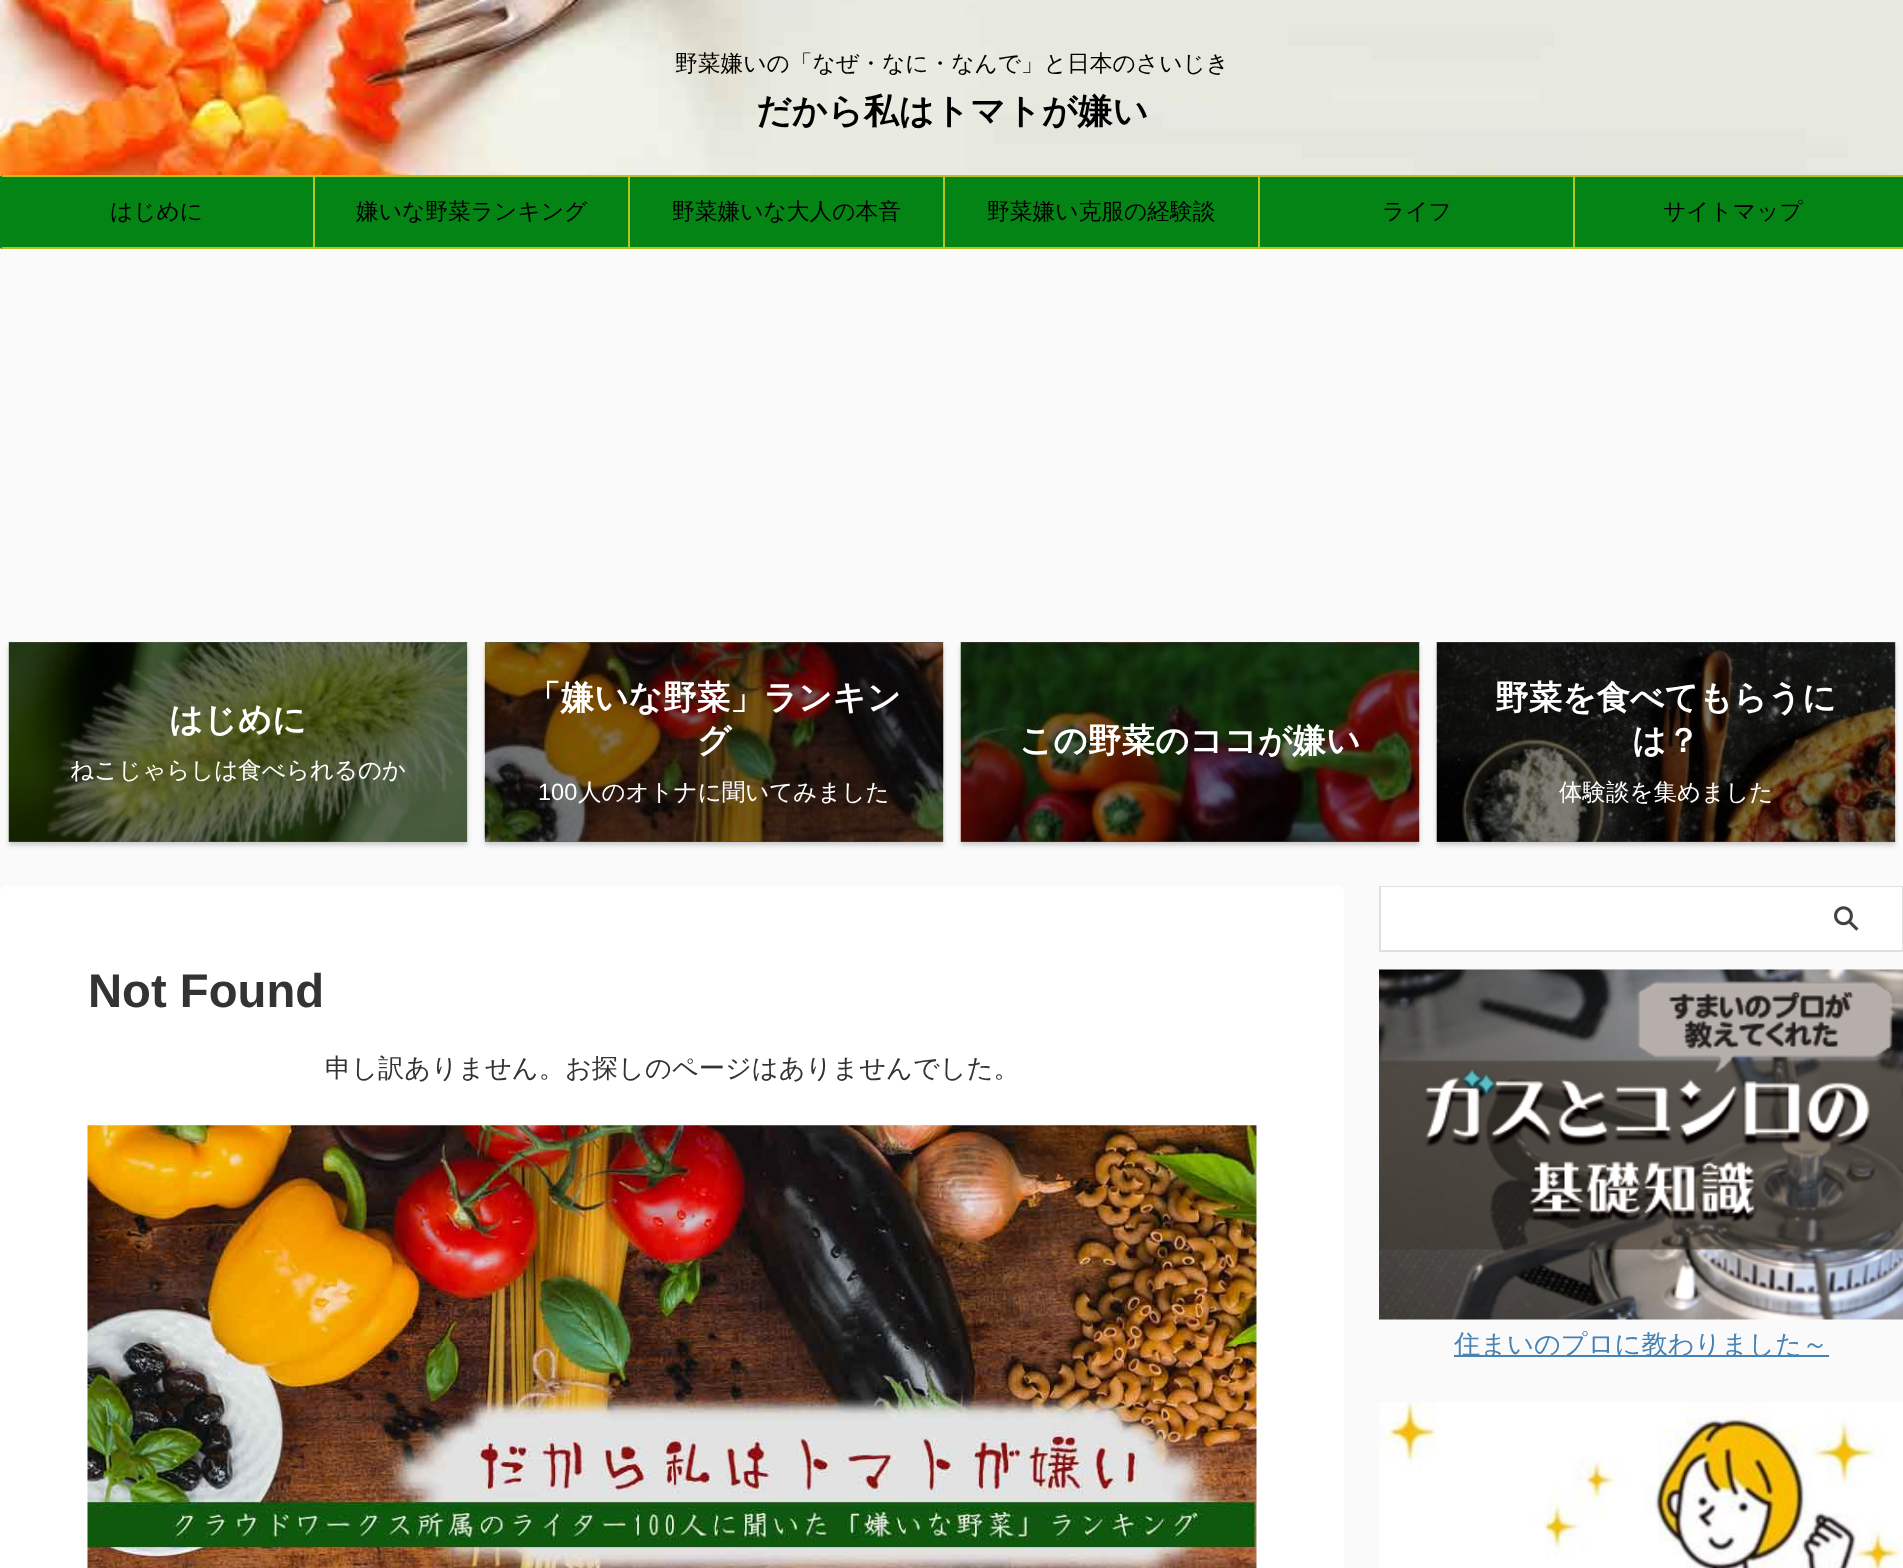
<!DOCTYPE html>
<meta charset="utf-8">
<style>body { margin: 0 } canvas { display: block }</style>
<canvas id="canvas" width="1903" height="1568"></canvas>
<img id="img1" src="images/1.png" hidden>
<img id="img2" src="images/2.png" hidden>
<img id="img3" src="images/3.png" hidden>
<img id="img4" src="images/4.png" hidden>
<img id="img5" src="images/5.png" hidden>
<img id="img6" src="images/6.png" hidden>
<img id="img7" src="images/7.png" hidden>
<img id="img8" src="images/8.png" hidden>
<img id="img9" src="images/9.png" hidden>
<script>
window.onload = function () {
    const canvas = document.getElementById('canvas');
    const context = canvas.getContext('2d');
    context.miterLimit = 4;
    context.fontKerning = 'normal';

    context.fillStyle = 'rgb(250, 250, 250)';
    context.fillRect(0, 0, 1903, 1568);
    context.drawImage(document.getElementById('img1'), 0, 0, 1903, 175);
    context.fillStyle = 'rgb(5, 132, 22)';
    context.beginPath();
    context.roundRect(0, 175, 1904, 74, 2);
    context.fill();
    context.fillStyle = 'rgb(182, 196, 31)';
    context.fillRect(2, 175, 1901, 2);
    context.fillRect(2, 247, 1901, 2);
    context.fillRect(313, 177, 2, 70);
    context.fillRect(628, 177, 2, 70);
    context.fillRect(943, 177, 2, 70);
    context.fillRect(1258, 177, 2, 70);
    context.fillRect(1573, 177, 2, 70);
    context.fillStyle = 'rgba(0, 0, 0, 0.2)';
    context.filter = 'blur(2.5px)';
    context.beginPath();
    context.rect(9, 646, 458, 199);
    context.fill();
    context.filter = 'none';
    context.drawImage(document.getElementById('img2'), 8, 642, 460, 200);
    context.fillStyle = 'rgba(0, 0, 0, 0.5)';
    context.fillRect(9, 642, 458, 200);
    context.fillStyle = 'rgba(0, 0, 0, 0.2)';
    context.filter = 'blur(2.5px)';
    context.beginPath();
    context.rect(485, 646, 458, 199);
    context.fill();
    context.filter = 'none';
    context.drawImage(document.getElementById('img3'), 484, 642, 460, 200);
    context.fillStyle = 'rgba(0, 0, 0, 0.5)';
    context.fillRect(485, 642, 458, 200);
    context.fillStyle = 'rgba(0, 0, 0, 0.2)';
    context.filter = 'blur(2.5px)';
    context.beginPath();
    context.rect(961, 646, 458, 199);
    context.fill();
    context.filter = 'none';
    context.drawImage(document.getElementById('img4'), 960, 642, 460, 200);
    context.fillStyle = 'rgba(0, 0, 0, 0.5)';
    context.fillRect(961, 642, 458, 200);
    context.fillStyle = 'rgba(0, 0, 0, 0.2)';
    context.filter = 'blur(2.5px)';
    context.beginPath();
    context.rect(1437, 646, 458, 199);
    context.fill();
    context.filter = 'none';
    context.drawImage(document.getElementById('img5'), 1436, 642, 460, 200);
    context.fillStyle = 'rgba(0, 0, 0, 0.5)';
    context.fillRect(1437, 642, 458, 200);
    context.fillStyle = 'rgb(255, 255, 255)';
    context.beginPath();
    context.roundRect(0, 886, 1344, 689, 7);
    context.fill();
    context.drawImage(document.getElementById('img6'), 87, 1125, 1170, 443);
    context.strokeStyle = 'rgb(224, 224, 224)';
    context.lineWidth = 2;
    context.strokeRect(1380, 887, 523, 64);
    context.fillRect(1381, 887, 521, 63);
    context.drawImage(document.getElementById('img7'), 1834, 906, 25, 25);
    context.drawImage(document.getElementById('img8'), 1379, 969, 524, 351);
    context.fillStyle = 'rgb(70, 130, 180)';
    context.fillRect(1454, 1355, 375, 2);
    context.drawImage(document.getElementById('img9'), 1379, 1402, 524, 166);
    context.font = '500 22.75px WenQuanYi Zen Hei';
    context.fillStyle = 'rgb(0, 0, 0)';
    context.fillText('野菜嫌いの「なぜ・なに・なんで」と日本のさいじき', 675, 71);
    context.font = 'bold 35px WenQuanYi Zen Hei';
    context.fillText('だから私はトマトが嫌い', 756, 123);
    context.font = '500 22.75px WenQuanYi Zen Hei';
    context.fillText('はじめに', 110, 219);
    context.fillText('嫌いな野菜ランキング', 356, 219);
    context.fillText('野菜嫌いな大人の本音', 672, 219);
    context.fillText('野菜嫌い克服の経験談', 987, 219);
    context.fillText('ライフ', 1382, 219);
    context.fillText('サイトマップ', 1663, 219);
    context.font = 'bold 33.6px WenQuanYi Zen Hei';
    context.fillStyle = 'rgb(255, 255, 255)';
    context.fillText('はじめに', 169, 731);
    context.font = '500 23.5px WenQuanYi Zen Hei';
    context.fillText('ねこじゃらしは食べられるのか', 70, 778);
    context.font = 'bold 33.6px WenQuanYi Zen Hei';
    context.fillText('「嫌いな野菜」ランキン', 527, 709);
    context.fillText('グ', 697, 752);
    context.font = '23.5px Liberation Sans';
    context.fillText('100', 538, 800);
    context.font = '500 23.5px WenQuanYi Zen Hei';
    context.fillText('人のオトナに聞いてみました', 578, 800);
    context.font = 'bold 33.6px WenQuanYi Zen Hei';
    context.fillText('この野菜のココが嫌い', 1019, 752);
    context.fillText('野菜を食べてもらうに', 1495, 709);
    context.fillText('は？', 1632, 752);
    context.font = '500 23.5px WenQuanYi Zen Hei';
    context.fillText('体験談を集めました', 1559, 800);
    context.font = 'bold 47.25px Liberation Sans';
    context.fillStyle = 'rgb(51, 51, 51)';
    context.fillText('Not Found', 88, 1007);
    context.font = '500 26.25px WenQuanYi Zen Hei';
    context.fillText('申し訳ありません。お探しのページはありませんでした。', 325, 1077);
    context.fillStyle = 'rgb(70, 130, 180)';
    context.fillText('住まいのプロに教わりました～', 1454, 1353);
};
</script>
